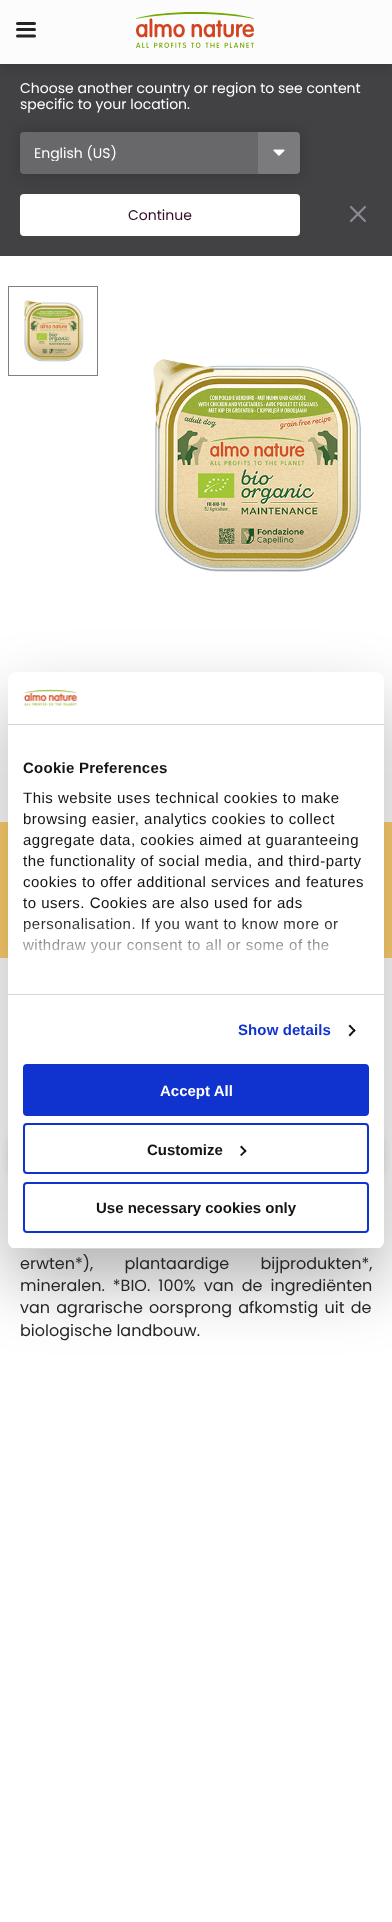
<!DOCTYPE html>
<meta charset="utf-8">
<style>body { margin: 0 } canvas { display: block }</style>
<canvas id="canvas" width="392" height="1922"></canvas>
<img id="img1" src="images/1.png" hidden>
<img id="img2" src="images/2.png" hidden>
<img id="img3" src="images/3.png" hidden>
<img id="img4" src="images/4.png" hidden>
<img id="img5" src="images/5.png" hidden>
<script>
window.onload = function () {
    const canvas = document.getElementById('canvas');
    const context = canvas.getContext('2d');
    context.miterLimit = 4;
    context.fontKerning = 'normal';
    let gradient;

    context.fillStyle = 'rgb(255, 255, 255)';
    context.fillRect(0, 0, 392, 1922);
    context.fillStyle = 'rgb(66, 66, 69)';
    context.fillRect(0, 64, 392, 192);
    context.fillStyle = 'rgba(0, 0, 0, 0.15)';
    context.filter = 'blur(4px)';
    context.beginPath();
    context.rect(0, 4, 392, 64);
    context.fill();
    context.filter = 'none';
    context.fillStyle = 'rgb(252, 252, 252)';
    context.fillRect(0, 0, 392, 64);
    context.beginPath();
    context.moveTo(17.5, 23.5);
    context.lineTo(34.5, 23.5);
    context.moveTo(17.5, 29.5);
    context.lineTo(34.5, 29.5);
    context.moveTo(17.5, 36);
    context.lineTo(34.5, 36);
    context.strokeStyle = 'rgb(37, 37, 37)';
    context.lineWidth = 3;
    context.lineCap = 'round';
    context.stroke();
    context.drawImage(document.getElementById('img1'), 136, 12, 118, 36);
    context.fillStyle = 'rgba(0, 0, 0, 0.2)';
    context.filter = 'blur(7px)';
    context.beginPath();
    context.roundRect(20, 132, 280, 42, 4);
    context.fill();
    context.filter = 'none';
    context.fillStyle = 'rgb(123, 123, 125)';
    context.beginPath();
    context.roundRect(258, 132, 42, 42, [0, 4, 4, 0]);
    context.fill();
    context.fillStyle = 'rgb(104, 104, 106)';
    context.beginPath();
    context.roundRect(20, 132, 238, 42, [4, 0, 0, 4]);
    context.fill();
    context.drawImage(document.getElementById('img2'), 273, 149, 12, 7);
    context.fillStyle = 'rgb(255, 255, 255)';
    context.beginPath();
    context.roundRect(20, 194, 280, 42, 4);
    context.fill();
    context.beginPath();
    context.moveTo(351, 221);
    context.lineTo(365, 207);
    context.moveTo(351, 207);
    context.lineTo(365, 221);
    context.strokeStyle = 'rgb(137, 137, 144)';
    context.lineWidth = 2.3;
    context.lineJoin = 'round';
    context.stroke();
    context.strokeStyle = 'rgb(128, 128, 128)';
    context.lineWidth = 1;
    context.lineJoin = 'miter';
    context.strokeRect(8.5, 286.5, 89, 89);
    context.drawImage(document.getElementById('img3'), 24, 300, 60, 62);
    context.drawImage(document.getElementById('img4'), 153, 359, 208, 213);
    context.fillStyle = 'rgb(255, 208, 111)';
    context.fillRect(0, 822, 392, 136);
    context.fillStyle = 'rgba(0, 0, 0, 0.15)';
    context.filter = 'blur(4px)';
    context.beginPath();
    context.roundRect(10, 1138, 113, 36, 7);
    context.fill();
    context.filter = 'none';
    context.filter = 'blur(4px)';
    context.beginPath();
    context.roundRect(283, 1138, 99, 36, 7);
    context.fill();
    context.filter = 'none';
    context.fillStyle = 'rgba(0, 0, 0, 0.3)';
    context.filter = 'blur(34px)';
    context.beginPath();
    context.roundRect(8, 704, 376, 577, 8);
    context.fill();
    context.filter = 'none';
    context.fillStyle = 'rgb(255, 255, 255)';
    context.beginPath();
    context.roundRect(8, 672, 376, 577, 8);
    context.fill();
    context.fillStyle = 'rgb(214, 214, 214)';
    context.fillRect(8, 724, 376, 1);
    context.drawImage(document.getElementById('img5'), 24, 689, 54, 17);
    context.fillRect(8, 994, 376, 1);
    context.fillStyle = 'rgb(20, 20, 20)';
    context.beginPath();
    context.moveTo(350, 1024.5);
    context.lineTo(355.5, 1030.5);
    context.lineTo(354.5, 1032);
    context.lineTo(348.5, 1026);
    context.closePath();
    context.fill();
    context.beginPath();
    context.moveTo(354.5, 1029);
    context.lineTo(355.5, 1030.5);
    context.lineTo(350, 1036.5);
    context.lineTo(348.5, 1035);
    context.closePath();
    context.fill();
    context.save();
    context.beginPath();
    context.roundRect(8, 672, 376, 577, 8);
    context.clip();
    context.fillStyle = 'rgb(214, 214, 214)';
    context.fillRect(8, 1248, 376, 1);
    context.restore();
    context.fillStyle = 'rgb(16, 50, 207)';
    context.beginPath();
    context.roundRect(24, 1065, 344, 50, 3);
    context.fill();
    context.strokeStyle = 'rgb(16, 50, 207)';
    context.lineWidth = 2;
    context.stroke();
    context.beginPath();
    context.roundRect(24, 1124, 344, 49, 3);
    context.stroke();
    context.fillStyle = 'rgb(20, 20, 20)';
    context.beginPath();
    context.moveTo(241.5, 1145.5);
    context.lineTo(246.5, 1151);
    context.lineTo(245.5, 1152.5);
    context.lineTo(240, 1147);
    context.closePath();
    context.fill();
    context.beginPath();
    context.moveTo(245.5, 1149.5);
    context.lineTo(246.5, 1151);
    context.lineTo(241.5, 1156);
    context.lineTo(240, 1155);
    context.closePath();
    context.fill();
    context.beginPath();
    context.roundRect(24, 1183, 344, 49, 3);
    context.stroke();
    context.font = '14px Poppins';
    context.fillStyle = 'rgb(255, 255, 255)';
    context.fillText('Choose another country or region to see content', 20, 93);
    context.fillText('specific to your location.', 20, 109);
    context.save();
    context.beginPath();
    context.rect(34, 145, 210, 16);
    context.clip();
    context.fillText('English (US)', 34, 158);
    context.restore();
    context.fillStyle = 'rgb(50, 10, 40)';
    context.fillText('Continue', 128, 220);
    context.wordSpacing = '27px';
    context.font = '16px Poppins';
    context.fillStyle = 'rgb(38, 38, 38)';
    context.fillText('erwten*), plantaardige bijprodukten*,', 20, 1269);
    context.wordSpacing = '3.75px';
    context.fillText('mineralen. *BIO. 100% van de ingrediënten', 20, 1291);
    context.wordSpacing = '2px';
    context.fillText('van agrarische oorsprong afkomstig uit de', 20, 1313);
    context.wordSpacing = '0px';
    context.fillText('biologische landbouw.', 20, 1336);
    context.letterSpacing = '0.25px';
    context.font = 'bold 15px Liberation Sans';
    context.fillStyle = 'rgb(20, 20, 20)';
    context.fillText('Cookie Preferences', 23, 773);
    context.letterSpacing = '0.5px';
    context.font = '15px Liberation Sans';
    context.fillText('This website uses technical cookies to make', 23, 803);
    context.fillText('browsing easier, analytics cookies to collect', 23, 824);
    context.fillText('aggregate data, cookies aimed at guaranteeing', 23, 845);
    context.fillText('the functionality of social media, and third-party', 23, 866);
    context.fillText('cookies to offer additional services and features', 23, 887);
    context.fillText('to users. Cookies are also used for ads', 23, 908);
    context.fillText('personalisation. If you want to know more or', 23, 929);
    context.fillText('withdraw your consent to all or some of the', 23, 950);
    gradient = context.createLinearGradient(190, 994, 190, 919);
    gradient.addColorStop(0, 'rgb(255, 255, 255)');
    gradient.addColorStop(0.5, 'rgba(255, 255, 255, 0.8)');
    gradient.addColorStop(1, 'rgba(255, 255, 255, 0)');
    context.fillStyle = gradient;
    context.fillRect(23, 920, 315, 34);
    context.letterSpacing = '0.1px';
    context.font = 'bold 15px Liberation Sans';
    context.fillStyle = 'rgb(16, 50, 207)';
    context.fillText('Show details', 238, 1035);
    context.letterSpacing = '0px';
    context.fillStyle = 'rgb(255, 255, 255)';
    context.fillText('Accept All', 160, 1096);
    context.fillStyle = 'rgb(20, 20, 20)';
    context.fillText('Customize', 147, 1155);
    context.fillText('Use necessary cookies only', 96, 1213);
};
</script>
